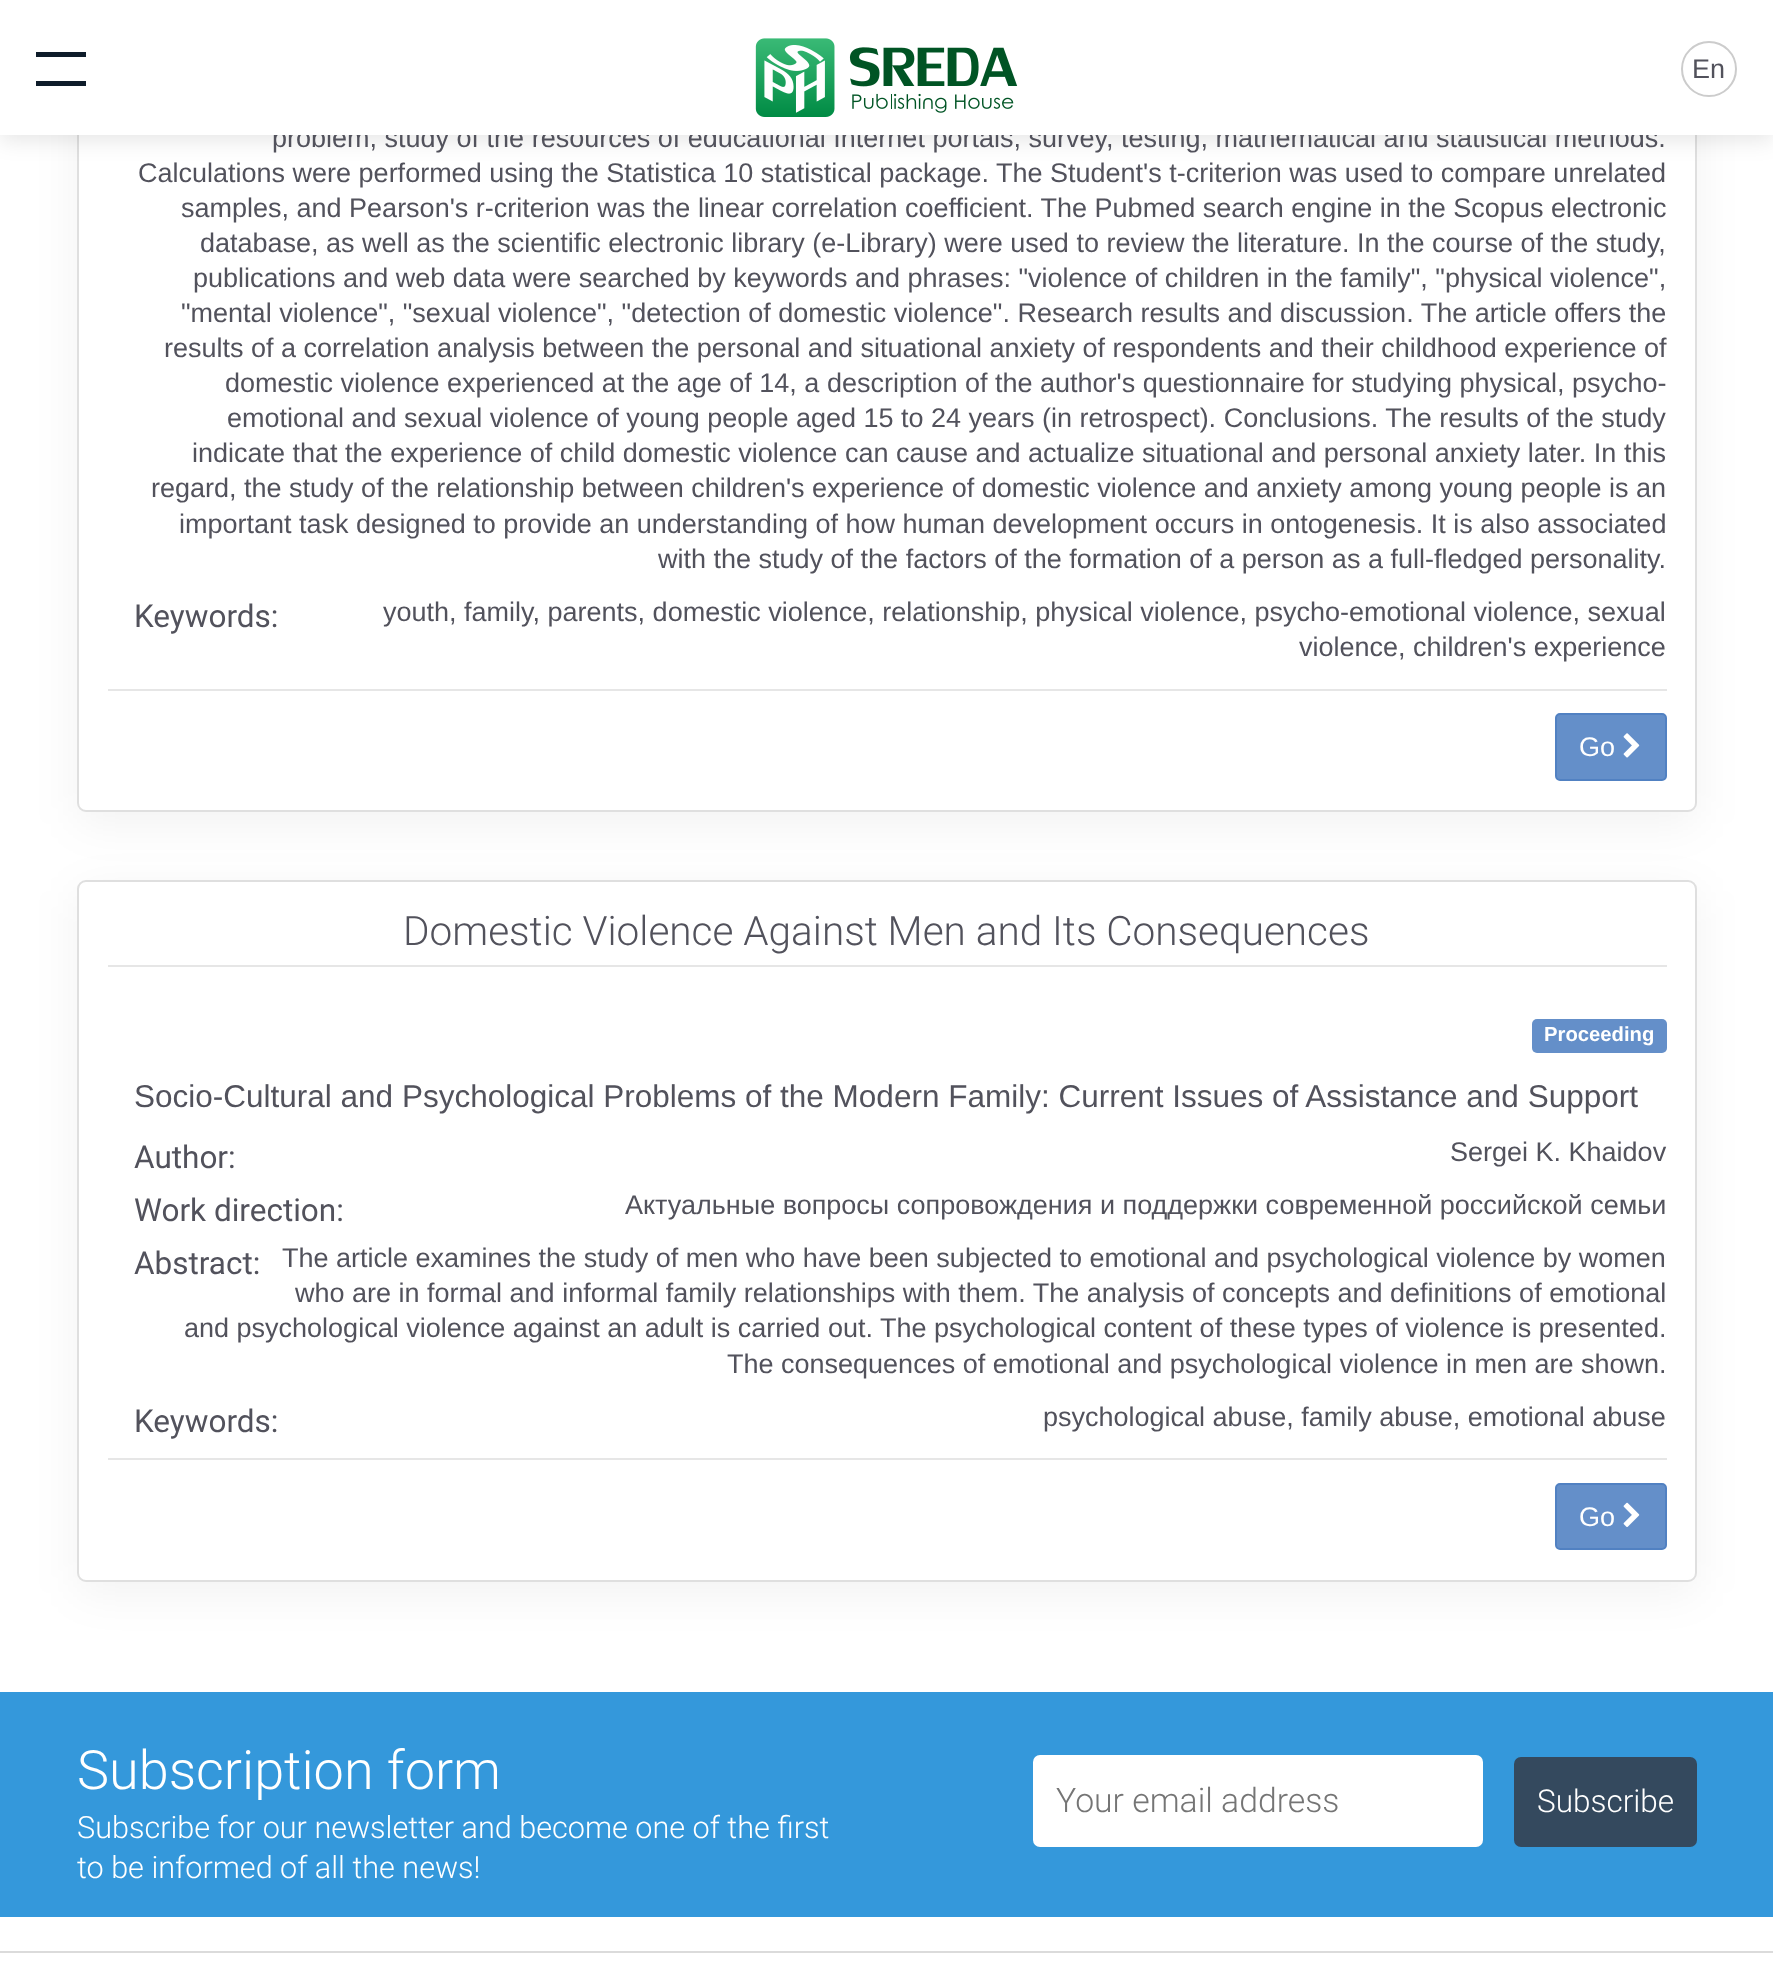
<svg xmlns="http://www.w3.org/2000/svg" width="1773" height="1979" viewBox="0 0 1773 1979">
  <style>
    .t1 { font: 27px Liberation Sans; fill: #52525c; }
    .t2 { font: 31.5px Roboto; fill: #52525c; }
    .t3 { font: 27px Liberation Sans; fill: #fff; }
    .t4 { font: 300 40.5px Roboto; fill: #52525c; }
    .t5 { font: bold 20.25px Liberation Sans; fill: #fff; }
    .t6 { font: 31.5px Liberation Sans; fill: #52525c; }
    .t7 { font: 300 54px Roboto; fill: #fff; }
    .t8 { font: 300 30.6px Roboto; fill: #fff; }
    .t9 { font: 300 33.75px Roboto; fill: #757575; }
    .t10 { font: 300 31.5px Roboto; fill: #fff; }
  </style>
  <rect width="100%" height="100%" fill="#fff"/>
  <rect x="77" y="-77" width="1620" height="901" rx="9" fill="#0000000d" filter="blur(22.5px)"/>
  <rect x="78" y="-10" width="1618" height="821" rx="8" fill="#fff" stroke="#dfdfdf" stroke-width="2"/>
  <rect x="0" y="5" width="1773" height="135" fill="#0000001a" filter="blur(11px)"/>
  <text x="272" y="147" class="t1">problem, study of the resources of educational Internet portals, survey, testing, mathematical and statistical methods.</text>
  <rect x="0" y="0" width="1773" height="135" fill="#fff"/>
  <rect x="36" y="52" width="50" height="5" fill="#0e1c2a"/>
  <rect x="36" y="81" width="50" height="5" fill="#0e1c2a"/>
  <image x="755" y="38" width="263" height="79" href="images/1.png"/>
  <circle cx="1709" cy="69" r="27" fill="none" stroke="#ccc" stroke-width="2"/>
  <text x="1692" y="78" class="t1">En</text>
  <text x="138" y="182" class="t1">Calculations were performed using the Statistica 10 statistical package. The Student's t-criterion was used to compare unrelated</text>
  <text x="181" y="217" class="t1">samples, and Pearson's r-criterion was the linear correlation coefficient. The Pubmed search engine in the Scopus electronic</text>
  <text x="200" y="252" class="t1">database, as well as the scientific electronic library (e-Library) were used to review the literature. In the course of the study,</text>
  <text x="193" y="287" class="t1">publications and web data were searched by keywords and phrases: "violence of children in the family", "physical violence",</text>
  <text x="181" y="322" class="t1">"mental violence", "sexual violence", "detection of domestic violence". Research results and discussion. The article offers the</text>
  <text x="164" y="357" class="t1">results of a correlation analysis between the personal and situational anxiety of respondents and their childhood experience of</text>
  <text x="225" y="392" class="t1">domestic violence experienced at the age of 14, a description of the author's questionnaire for studying physical, psycho-</text>
  <text x="227" y="427" class="t1">emotional and sexual violence of young people aged 15 to 24 years (in retrospect). Conclusions. The results of the study</text>
  <text x="192" y="462" class="t1">indicate that the experience of child domestic violence can cause and actualize situational and personal anxiety later. In this</text>
  <text x="151" y="497" class="t1">regard, the study of the relationship between children's experience of domestic violence and anxiety among young people is an</text>
  <text x="179" y="533" class="t1">important task designed to provide an understanding of how human development occurs in ontogenesis. It is also associated</text>
  <text x="658" y="568" class="t1">with the study of the factors of the formation of a person as a full-fledged personality.</text>
  <text x="134" y="627" class="t2">Keywords:</text>
  <text x="383" y="621" class="t1">youth, family, parents, domestic violence, relationship, physical violence, psycho-emotional violence, sexual</text>
  <text x="1299" y="656" class="t1">violence, children's experience</text>
  <rect x="108" y="689" width="1559" height="2" fill="#e6e6e6"/>
  <rect x="1556" y="714" width="110" height="66" rx="4" fill="#648fc9" stroke="#5181c2" stroke-width="2"/>
  <text x="1579" y="756" class="t3">Go</text>
  <image x="1623" y="733" width="17" height="25" href="images/2.png"/>
  <rect x="77" y="891" width="1620" height="702" rx="9" fill="#0000000d" filter="blur(22.5px)"/>
  <rect x="78" y="881" width="1618" height="700" rx="8" fill="#fff" stroke="#dfdfdf" stroke-width="2"/>
  <rect x="108" y="965" width="1559" height="2" fill="#e6e6e6"/>
  <text x="403" y="945" class="t4">Domestic Violence Against Men and Its Consequences</text>
  <rect x="1532" y="1019" width="135" height="34" rx="5" fill="#648fc9"/>
  <text x="1544" y="1041" class="t5">Proceeding</text>
  <text x="134" y="1107" class="t6">Socio-Cultural and Psychological Problems of the Modern Family: Current Issues of Assistance and Support</text>
  <text x="134" y="1168" class="t2">Author:</text>
  <text x="1450" y="1161" class="t1">Sergei K. Khaidov</text>
  <text x="134" y="1221" class="t2">Work direction:</text>
  <text x="625" y="1214" class="t1">Актуальные вопросы сопровождения и поддержки современной российской семьи</text>
  <text x="282" y="1267" class="t1">The article examines the study of men who have been subjected to emotional and psychological violence by women</text>
  <text x="295" y="1302" class="t1">who are in formal and informal family relationships with them. The analysis of concepts and definitions of emotional</text>
  <text x="184" y="1337" class="t1">and psychological violence against an adult is carried out. The psychological content of these types of violence is presented.</text>
  <text x="727" y="1373" class="t1">The consequences of emotional and psychological violence in men are shown.</text>
  <text x="134" y="1274" class="t2">Abstract:</text>
  <text x="134" y="1432" class="t2">Keywords:</text>
  <text x="1043" y="1426" class="t1">psychological abuse, family abuse, emotional abuse</text>
  <rect x="108" y="1458" width="1559" height="2" fill="#e6e6e6"/>
  <rect x="1556" y="1484" width="110" height="65" rx="4" fill="#648fc9" stroke="#5181c2" stroke-width="2"/>
  <text x="1579" y="1526" class="t3">Go</text>
  <image x="1623" y="1502" width="17" height="25" href="images/3.png"/>
  <rect x="0" y="1692" width="1773" height="225" fill="#3498db"/>
  <text x="77" y="1789" class="t7">Subscription form</text>
  <text x="77" y="1838" class="t8">Subscribe for our newsletter and become one of the first</text>
  <text x="77" y="1878" class="t8">to be informed of all the news!</text>
  <rect x="1033" y="1755" width="450" height="92" rx="7" fill="#fff"/>
  <text x="1056" y="1812" class="t9">Your email address</text>
  <rect x="1514" y="1757" width="183" height="90" rx="7" fill="#34495e"/>
  <text x="1537" y="1812" class="t10">Subscribe</text>
  <rect x="0" y="1951" width="1773" height="2" fill="#dbdbdb"/>
</svg>
